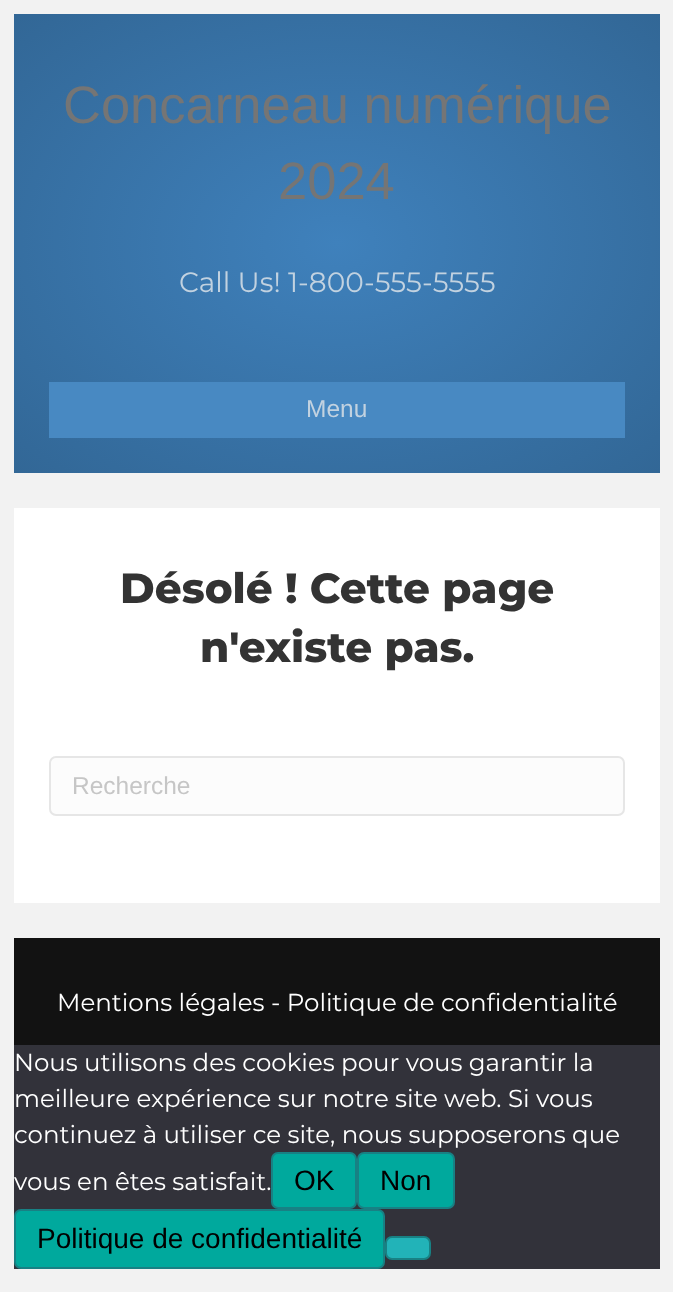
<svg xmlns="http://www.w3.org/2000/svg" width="673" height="1292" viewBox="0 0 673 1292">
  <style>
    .t1 { font: 52.5px Liberation Sans; fill: #757575; }
    .t2 { font: 28px Montserrat; fill: #c2d2e0; }
    .t3 { font: 24.5px Liberation Sans; fill: #c2d2e0; }
    .t4 { font: 800 42px Montserrat; fill: #333; }
    .t5 { font: 24.5px Liberation Sans; fill: #c6c6c6; }
    .t6 { font: 24.5px Montserrat; fill: #fff; }
    .t7 { font: 28px Liberation Sans; fill: #000; }
  </style>
  <defs>
    <radialGradient id="g1" gradientUnits="userSpaceOnUse" cx="0" cy="0" r="1" gradientTransform="matrix(457 0 0 324 337 243)"><stop offset="0" stop-color="#3f81bc"/><stop offset="1" stop-color="#326796"/></radialGradient>
  </defs>
  <rect width="100%" height="100%" fill="#f2f2f2"/>
  <rect x="14" y="14" width="646" height="459" fill="url(#g1)"/>
  <text x="63" y="123" class="t1">Concarneau numérique</text>
  <text x="278" y="199" class="t1">2024</text>
  <text x="179" y="292" class="t2">Call Us! 1-800-555-5555</text>
  <rect x="49" y="382" width="576" height="56" fill="#4889c2"/>
  <text x="306" y="417" class="t3">Menu</text>
  <rect x="14" y="508" width="646" height="395" fill="#fff"/>
  <text x="120" y="603" class="t4">Désolé ! Cette page</text>
  <text x="200" y="662" class="t4">n'existe pas.</text>
  <rect x="50" y="757" width="574" height="58" rx="6" fill="#fcfcfc" stroke="#e6e6e6" stroke-width="2"/>
  <text x="72" y="794" class="t5">Recherche</text>
  <rect x="14" y="938" width="646" height="107" fill="#121212"/>
  <text x="57" y="1011" class="t6">Mentions légales - Politique de confidentialité</text>
  <rect x="14" y="1045" width="646" height="224" fill="#32323a"/>
  <text x="14" y="1071" class="t6">Nous utilisons des cookies pour vous garantir la</text>
  <text x="14" y="1107" class="t6">meilleure expérience sur notre site web. Si vous</text>
  <text x="14" y="1143" class="t6">continuez à utiliser ce site, nous supposerons que</text>
  <rect x="272" y="1153" width="84" height="55" rx="6" fill="#00a99d" stroke="#188184" stroke-width="2"/>
  <text x="294" y="1190" class="t7">OK</text>
  <rect x="358" y="1153" width="96" height="55" rx="6" fill="#00a99d" stroke="#188184" stroke-width="2"/>
  <text x="380" y="1190" class="t7">Non</text>
  <rect x="15" y="1210" width="369" height="58" rx="6" fill="#00a99d" stroke="#188184" stroke-width="2"/>
  <text x="37" y="1248" class="t7">Politique de confidentialité</text>
  <text x="14" y="1190" class="t6">vous en êtes satisfait.</text>
  <rect x="386" y="1237" width="44" height="22" rx="6" fill="#22b3b8" stroke="#188184" stroke-width="2"/>
</svg>
